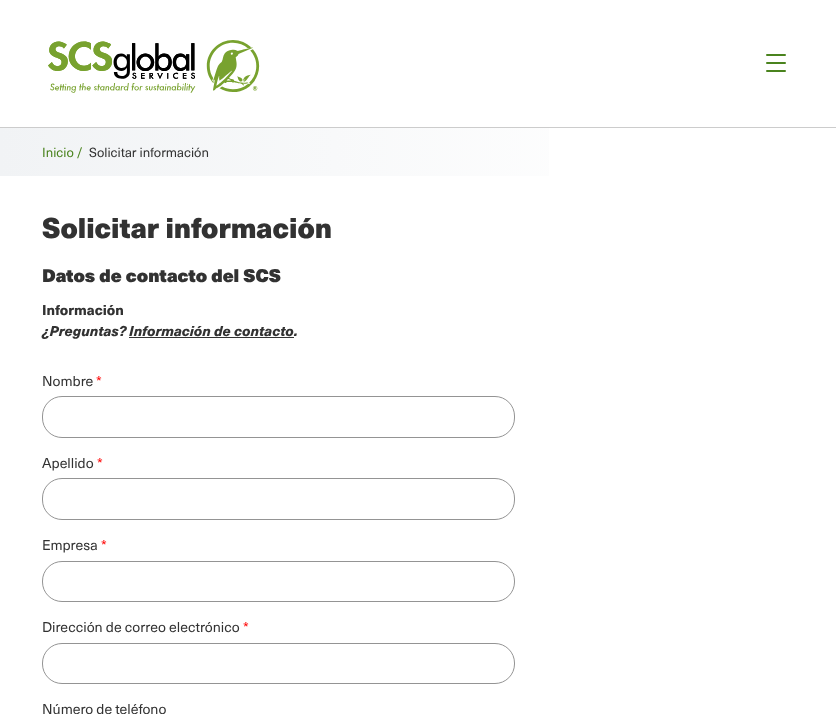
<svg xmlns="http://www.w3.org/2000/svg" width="836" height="714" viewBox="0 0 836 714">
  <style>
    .t1 { font: 13px 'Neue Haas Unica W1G'; fill: #4a831e; }
    .t2 { font: 13px 'Neue Haas Unica W1G'; fill: #323232; }
    .t3 { font: 900 28px 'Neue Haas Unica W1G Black'; fill: #323232; }
    .t4 { font: 900 18px 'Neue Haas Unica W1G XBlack'; fill: #323232; }
    .t5 { font: 900 14px 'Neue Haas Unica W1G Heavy'; fill: #323232; }
    .t6 { font: italic 900 14px 'Neue Haas Unica W1G Heavy'; fill: #323232; }
    .t7 { font: 14px 'Neue Haas Unica W1G'; fill: #323232; }
    .t8 { font: 14px 'Neue Haas Unica W1G'; fill: #f00; }
  </style>
  <defs>
    <linearGradient id="g1" gradientUnits="userSpaceOnUse" x1="0" y1="152" x2="836" y2="152"><stop offset="0" stop-color="#f1f3f5"/><stop offset="0.8" stop-color="#fff"/></linearGradient>
  </defs>
  <rect width="100%" height="100%" fill="#fff"/>
  <rect x="0" y="127" width="836" height="1" fill="#ccc"/>
  <image x="48" y="40" width="212" height="53" href="images/1.png"/>
  <rect x="766" y="54" width="20" height="2" rx="1" fill="#4a831e"/>
  <rect x="766" y="62" width="20" height="2" rx="1" fill="#4a831e"/>
  <rect x="766" y="70" width="20" height="2" rx="1" fill="#4a831e"/>
  <rect x="0" y="128" width="549" height="48" fill="url(#g1)"/>
  <text x="42" y="157" class="t1">Inicio /</text>
  <text x="89" y="157" class="t2">Solicitar información</text>
  <text x="42" y="238" class="t3">Solicitar información</text>
  <text x="42" y="282" class="t4">Datos de contacto del SCS</text>
  <text x="42" y="315" class="t5">Información</text>
  <text x="42" y="336" class="t6">¿Preguntas? Información de contacto.</text>
  <rect x="129" y="337" width="165" height="1" fill="#323232"/>
  <text x="42" y="386" class="t7">Nombre</text>
  <text x="96" y="386" class="t8">*</text>
  <rect x="42.5" y="396.5" width="472" height="41" rx="19.5" fill="none" stroke="#949494"/>
  <text x="42" y="468" class="t7">Apellido</text>
  <text x="97" y="468" class="t8">*</text>
  <rect x="42.5" y="478.5" width="472" height="41" rx="19.5" fill="none" stroke="#949494"/>
  <text x="42" y="550" class="t7">Empresa</text>
  <text x="101" y="550" class="t8">*</text>
  <rect x="42.5" y="561.5" width="472" height="40" rx="19.5" fill="none" stroke="#949494"/>
  <text x="42" y="632" class="t7">Dirección de correo electrónico</text>
  <text x="243" y="632" class="t8">*</text>
  <rect x="42.5" y="643.5" width="472" height="40" rx="19.5" fill="none" stroke="#949494"/>
  <text x="42" y="714" class="t7">Número de teléfono</text>
</svg>
